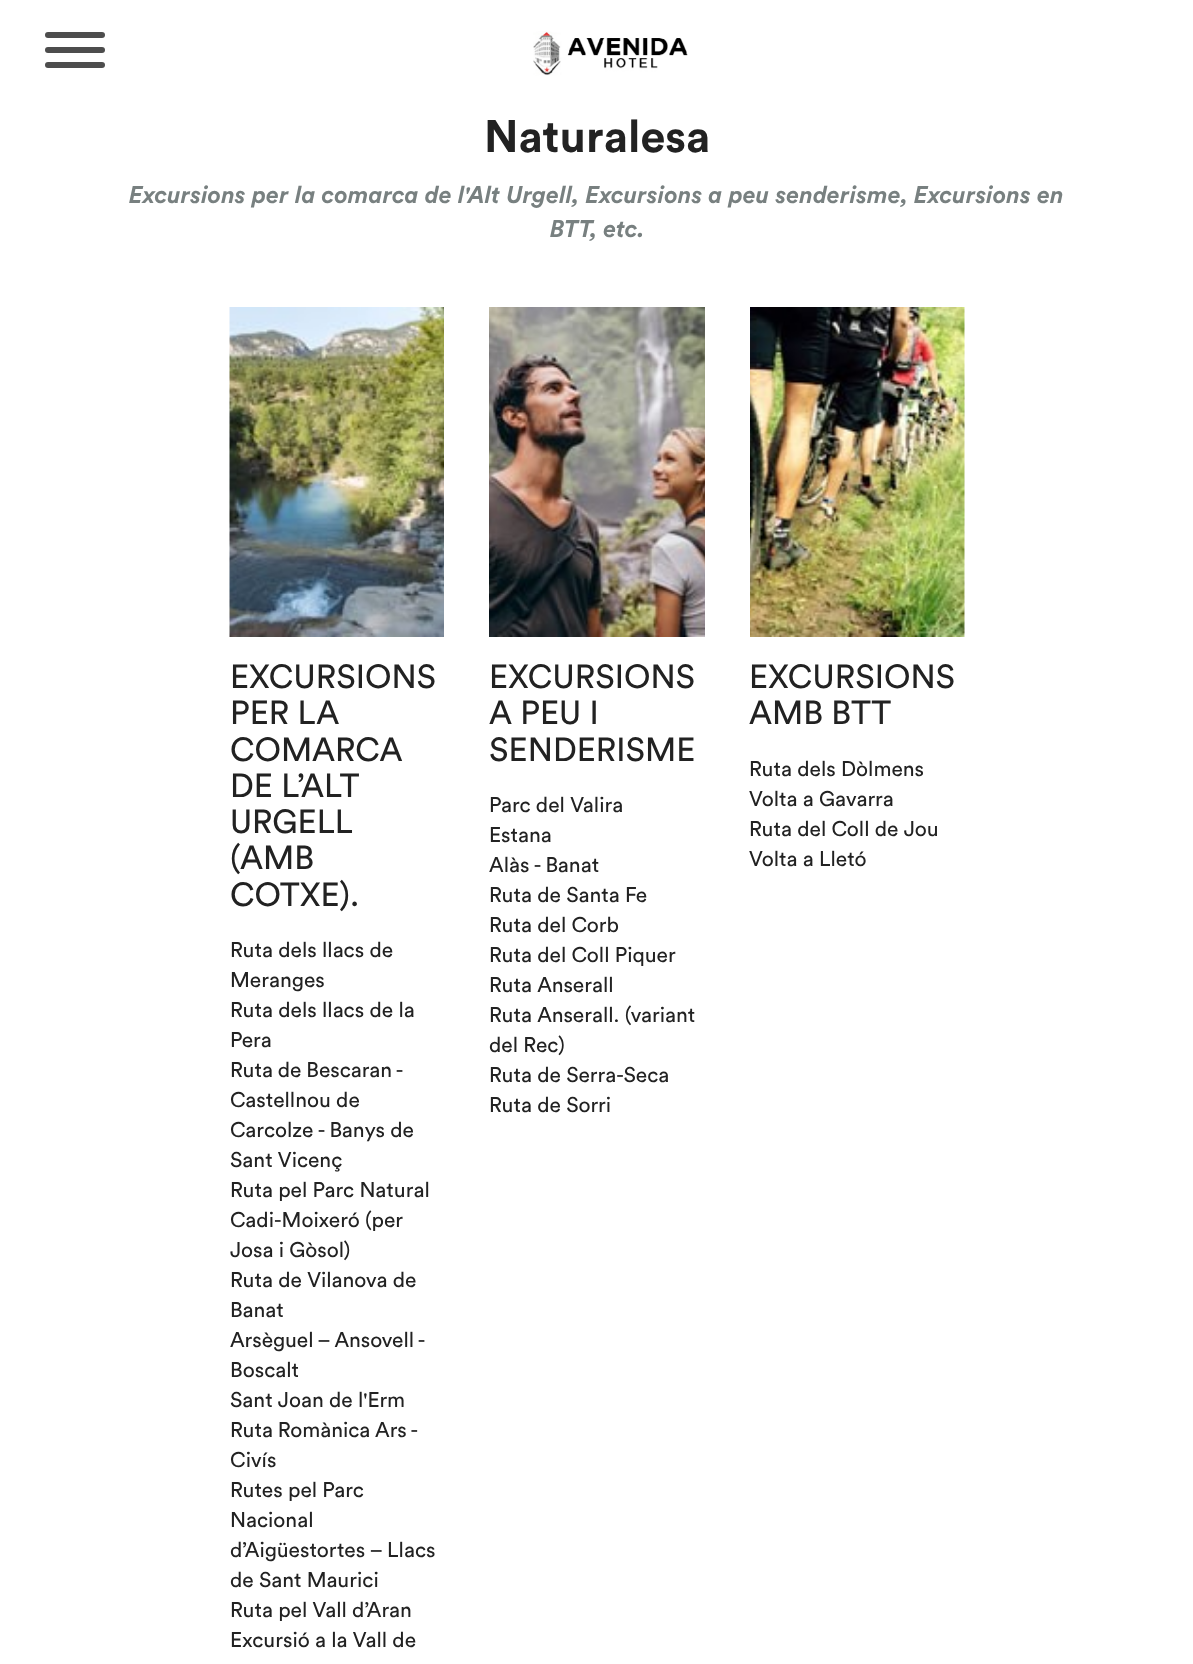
<svg xmlns="http://www.w3.org/2000/svg" width="1193" height="1664" viewBox="0 0 1193 1664">
  <style>
    .t1 { font: bold 45px Circular; fill: #222; }
    .t2 { font: italic bold 24px Circular; fill: #788080; }
    .t3 { font: 33px Circular; fill: #222; }
    .t4 { font: 21px Circular; fill: #222; }
  </style>
  <rect width="100%" height="100%" fill="#fff"/>
  <rect x="45" y="47" width="60" height="6" rx="3" fill="#4d4d4d"/>
  <rect x="45" y="32" width="60" height="6" rx="3" fill="#4d4d4d"/>
  <rect x="45" y="62" width="60" height="6" rx="3" fill="#4d4d4d"/>
  <image x="533" y="31" width="155" height="45" href="images/1.png"/>
  <text x="484" y="152" class="t1">Naturalesa</text>
  <text x="129" y="203" class="t2">Excursions per la comarca de l'Alt Urgell, Excursions a peu senderisme, Excursions en</text>
  <text x="550" y="237" class="t2">BTT, etc.</text>
  <image x="229" y="307" width="215" height="330" href="images/2.png"/>
  <text x="230" y="688" class="t3">EXCURSIONS</text>
  <text x="230" y="724" class="t3">PER LA</text>
  <text x="230" y="761" class="t3">COMARCA</text>
  <text x="230" y="797" class="t3">DE L’ALT</text>
  <text x="230" y="833" class="t3">URGELL</text>
  <text x="230" y="869" class="t3">(AMB</text>
  <text x="230" y="906" class="t3">COTXE).</text>
  <text x="230" y="957" class="t4">Ruta dels llacs de</text>
  <text x="230" y="987" class="t4">Meranges</text>
  <text x="230" y="1017" class="t4">Ruta dels llacs de la</text>
  <text x="230" y="1047" class="t4">Pera</text>
  <text x="230" y="1077" word-spacing="-0.5" class="t4">Ruta de Bescaran -</text>
  <text x="230" y="1107" class="t4">Castellnou de</text>
  <text x="230" y="1137" class="t4">Carcolze - Banys de</text>
  <text x="230" y="1167" class="t4">Sant Vicenç</text>
  <text x="230" y="1197" class="t4">Ruta pel Parc Natural</text>
  <text x="230" y="1227" class="t4">Cadi-Moixeró (per</text>
  <text x="230" y="1257" class="t4">Josa i Gòsol)</text>
  <text x="230" y="1287" class="t4">Ruta de Vilanova de</text>
  <text x="230" y="1317" class="t4">Banat</text>
  <text x="230" y="1347" word-spacing="-0.5" class="t4">Arsèguel – Ansovell -</text>
  <text x="230" y="1377" class="t4">Boscalt</text>
  <text x="230" y="1407" class="t4">Sant Joan de l'Erm</text>
  <text x="230" y="1437" word-spacing="-0.5" class="t4">Ruta Romànica Ars -</text>
  <text x="230" y="1467" class="t4">Civís</text>
  <text x="230" y="1497" class="t4">Rutes pel Parc</text>
  <text x="230" y="1527" class="t4">Nacional</text>
  <text x="230" y="1557" class="t4">d’Aigüestortes – Llacs</text>
  <text x="230" y="1587" class="t4">de Sant Maurici</text>
  <text x="230" y="1617" class="t4">Ruta pel Vall d’Aran</text>
  <text x="230" y="1647" class="t4">Excursió a la Vall de</text>
  <image x="489" y="307" width="216" height="330" href="images/3.png"/>
  <text x="489" y="688" class="t3">EXCURSIONS</text>
  <text x="489" y="724" class="t3">A PEU I</text>
  <text x="489" y="761" class="t3">SENDERISME</text>
  <text x="489" y="812" class="t4">Parc del Valira</text>
  <text x="489" y="842" class="t4">Estana</text>
  <text x="489" y="872" class="t4">Alàs - Banat</text>
  <text x="489" y="902" class="t4">Ruta de Santa Fe</text>
  <text x="489" y="932" class="t4">Ruta del Corb</text>
  <text x="489" y="962" class="t4">Ruta del Coll Piquer</text>
  <text x="489" y="992" class="t4">Ruta Anserall</text>
  <text x="489" y="1022" class="t4">Ruta Anserall. (variant</text>
  <text x="489" y="1052" class="t4">del Rec)</text>
  <text x="489" y="1082" class="t4">Ruta de Serra-Seca</text>
  <text x="489" y="1112" class="t4">Ruta de Sorri</text>
  <image x="750" y="307" width="215" height="330" href="images/4.png"/>
  <text x="749" y="688" class="t3">EXCURSIONS</text>
  <text x="749" y="724" class="t3">AMB BTT</text>
  <text x="749" y="776" class="t4">Ruta dels Dòlmens</text>
  <text x="749" y="806" class="t4">Volta a Gavarra</text>
  <text x="749" y="836" class="t4">Ruta del Coll de Jou</text>
  <text x="749" y="866" class="t4">Volta a Lletó</text>
</svg>
